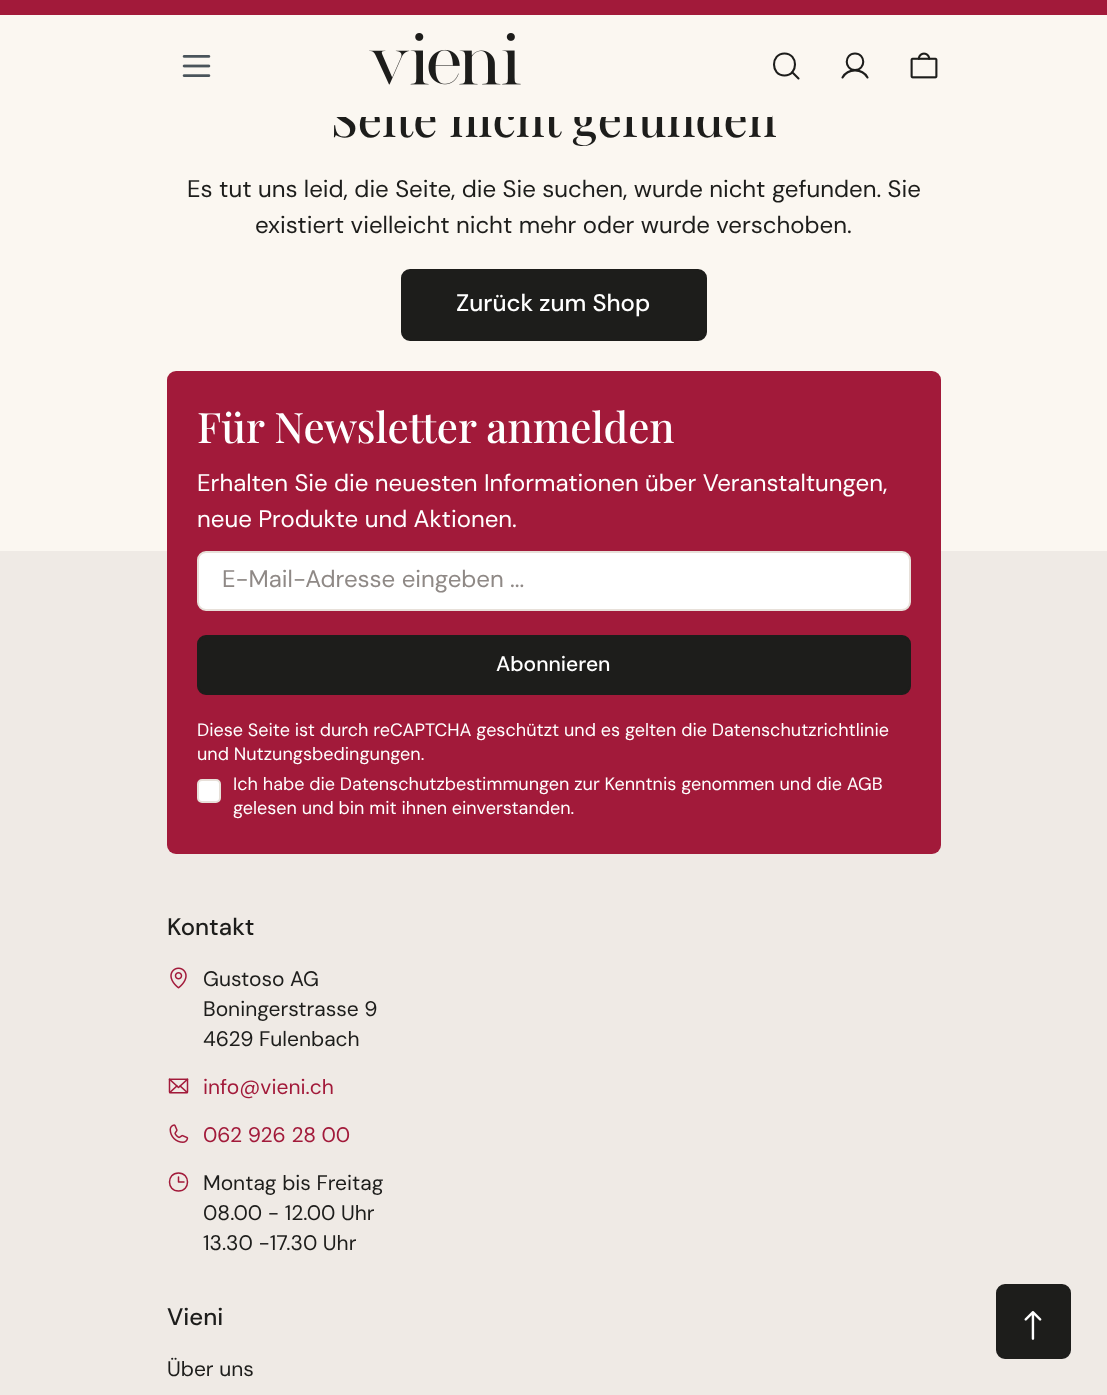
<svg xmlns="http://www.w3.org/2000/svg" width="1107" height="1395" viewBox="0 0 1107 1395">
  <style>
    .t1 { font: 500 48px Playfair Display; fill: #1d1d1b; }
    .t2 { font: 24px DM Sans; fill: #1d1d1b; }
    .t3 { font: 500 24px DM Sans; fill: #fff; }
    .t4 { font: 500 42px Playfair Display; fill: #fff; }
    .t5 { font: 24px DM Sans; fill: #fff; }
    .t6 { font: 24px DM Sans; fill: #8f8986; }
    .t7 { font: 500 21px 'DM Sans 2'; fill: #fff; }
    .t8 { font: 18px 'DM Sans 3'; fill: #fff; }
    .t9 { font: 500 24px DM Sans; fill: #1d1d1b; }
    .t10 { font: 21px 'DM Sans 2'; fill: #1d1d1b; }
    .t11 { font: 21px 'DM Sans 2'; fill: #a21a3a; }
  </style>
  <rect width="100%" height="100%" fill="#fbf7f1"/>
  <text x="331" y="137" class="t1">Seite nicht gefunden</text>
  <rect x="333" y="99" width="439" height="18" fill="#fbf7f1"/>
  <rect x="0" y="0" width="1107" height="15" fill="#a21a3a"/>
  <image x="182" y="55" width="29" height="22" href="images/1.png"/>
  <image x="369" y="33" width="152" height="52" href="images/2.png"/>
  <path d="M784.5 75.5C798.5 75.5 798.5 53.5 784.5 53.5C770.5 53.5 770.5 75.5 784.5 75.5ZM792 72L798.5 78.5" fill="none" stroke="#1d1d1b" stroke-width="2.1" stroke-linecap="round" stroke-linejoin="round"/>
  <path d="M855 70C866 70 866 53.5 855 53.5C844 53.5 844 70 855 70Z" fill="none" stroke="#1d1d1b" stroke-width="2.1"/>
  <path d="M842.5 77.5C848 68 862 68 867.5 77.5" fill="none" stroke="#1d1d1b" stroke-width="2.1" stroke-linecap="round" stroke-linejoin="round"/>
  <image x="910" y="52" width="28" height="27" href="images/3.png"/>
  <text x="187" y="197" class="t2">Es tut uns leid, die Seite, die Sie suchen, wurde nicht gefunden. Sie</text>
  <text x="255" y="233" class="t2">existiert vielleicht nicht mehr oder wurde verschoben.</text>
  <rect x="402" y="270" width="304" height="70" rx="8" fill="#1d1d1b" stroke="#1d1d1b" stroke-width="2"/>
  <text x="456" y="311" class="t3">Zurück zum Shop</text>
  <rect x="0" y="551" width="1107" height="844" fill="#efeae5"/>
  <rect x="167" y="371" width="774" height="483" rx="9" fill="#a21a3a"/>
  <text x="197" y="443" class="t4">Für Newsletter anmelden</text>
  <text x="197" y="491" class="t5">Erhalten Sie die neuesten Informationen über Veranstaltungen,</text>
  <text x="197" y="527" class="t5">neue Produkte und Aktionen.</text>
  <rect x="198" y="552" width="712" height="58" rx="8" fill="#fff" stroke="#e7e0d9" stroke-width="2"/>
  <text x="222" y="587" class="t6">E-Mail-Adresse eingeben ...</text>
  <rect x="198" y="636" width="712" height="58" rx="8" fill="#1d1d1b" stroke="#1d1d1b" stroke-width="2"/>
  <text x="496" y="671" class="t7">Abonnieren</text>
  <text x="197" y="736" class="t8">Diese Seite ist durch reCAPTCHA geschützt und es gelten die Datenschutzrichtlinie</text>
  <text x="197" y="760" class="t8">und Nutzungsbedingungen.</text>
  <rect x="198" y="780" width="22" height="22" rx="4" fill="#fff" stroke="#e7e0d9" stroke-width="2"/>
  <text x="233" y="790" class="t8">Ich habe die Datenschutzbestimmungen zur Kenntnis genommen und die AGB</text>
  <text x="233" y="814" class="t8">gelesen und bin mit ihnen einverstanden.</text>
  <text x="167" y="935" class="t9">Kontakt</text>
  <image x="170" y="967" width="17" height="22" href="images/4.png"/>
  <text x="203" y="986" class="t10">Gustoso AG</text>
  <text x="203" y="1016" class="t10">Boningerstrasse 9</text>
  <text x="203" y="1046" class="t10">4629 Fulenbach</text>
  <image x="168" y="1078" width="21" height="16" href="images/5.png"/>
  <text x="203" y="1094" class="t11">info@vieni.ch</text>
  <image x="169" y="1124" width="20" height="19" href="images/6.png"/>
  <text x="203" y="1142" class="t11">062 926 28 00</text>
  <path d="M178.5 1191C190.5 1191 190.5 1173 178.5 1173C166.5 1173 166.5 1191 178.5 1191Z" fill="none" stroke="#a21a3a" stroke-width="1.5"/>
  <path d="M178.5 1177V1182H184" fill="none" stroke="#a21a3a" stroke-width="1.5" stroke-linecap="round" stroke-linejoin="round"/>
  <text x="203" y="1190" class="t10">Montag bis Freitag</text>
  <text x="203" y="1220" class="t10">08.00 - 12.00 Uhr</text>
  <text x="203" y="1250" class="t10">13.30 -17.30 Uhr</text>
  <text x="167" y="1325" class="t9">Vieni</text>
  <text x="167" y="1376" class="t10">Über uns</text>
  <rect x="997" y="1285" width="73" height="73" rx="8" fill="#1d1d1b" stroke="#1d1d1b" stroke-width="2"/>
  <image x="1024" y="1311" width="18" height="29" href="images/7.png"/>
</svg>
